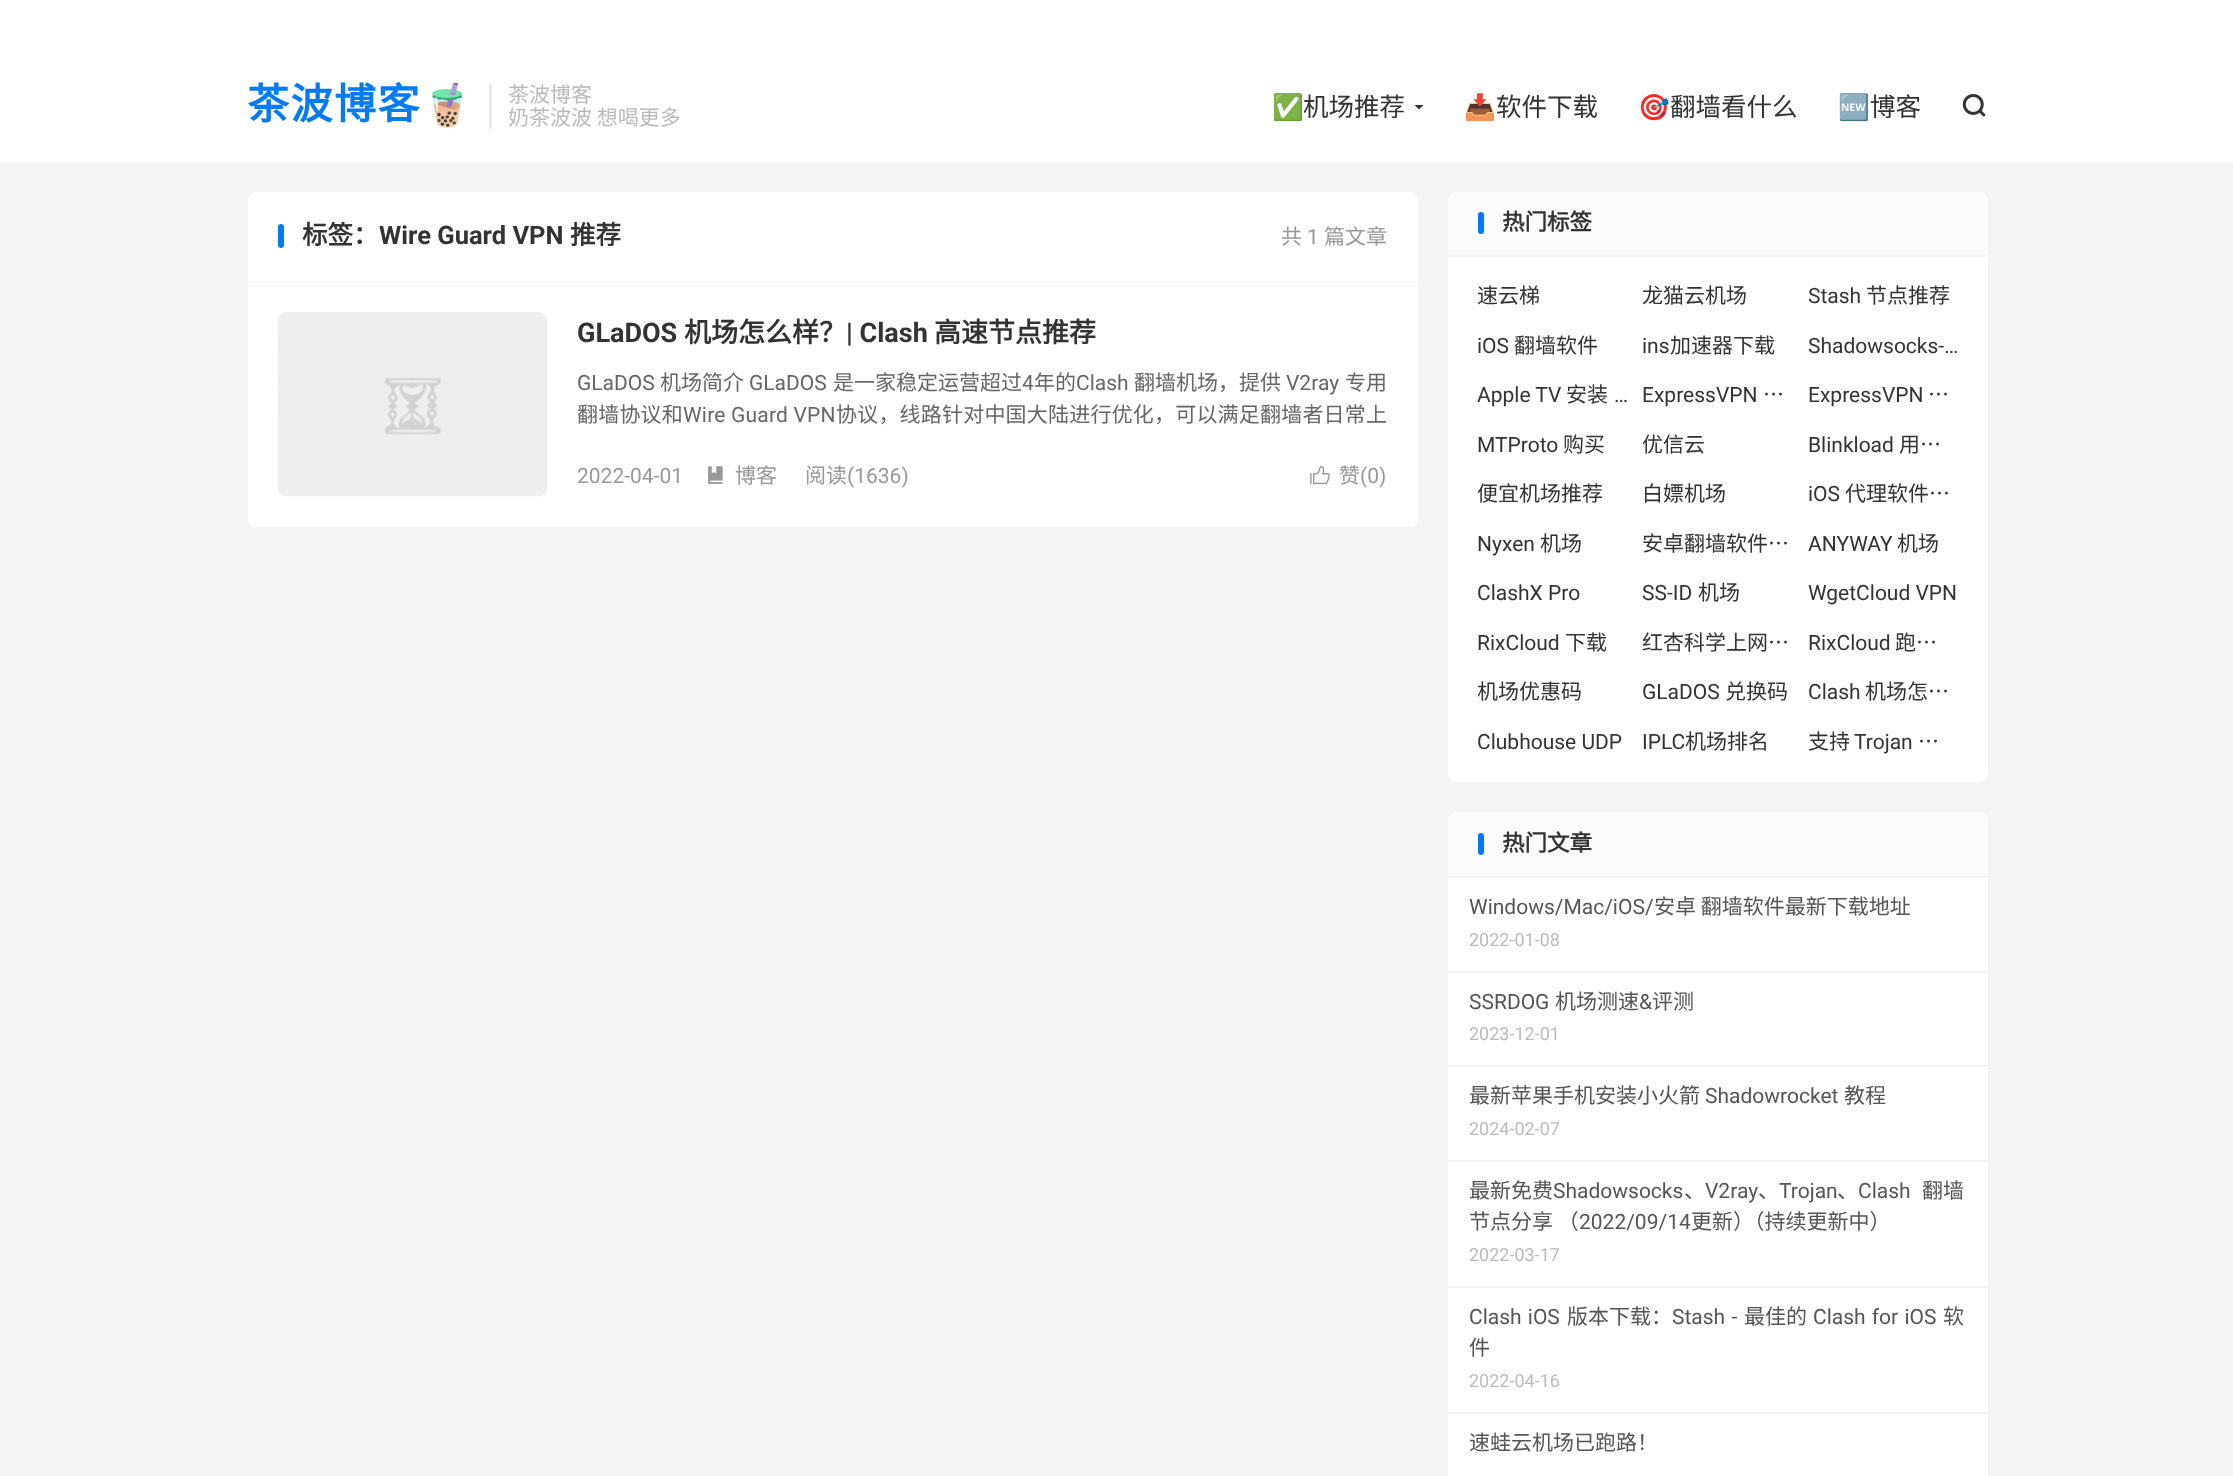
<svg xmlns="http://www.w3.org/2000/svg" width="2233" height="1476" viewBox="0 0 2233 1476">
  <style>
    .t1 { font: bold 42px Noto Sans CJK SC; letter-spacing: 1.5px; fill: #007bff; }
    .t2 { font: bold 42px Noto Color Emoji; letter-spacing: 1.5px; fill: #007bff; }
    .t3 { font: 21px Noto Sans CJK SC; fill: #bbb; }
    .t4 { font: 25.5px Noto Color Emoji; fill: #333; }
    .t5 { font: 25.5px Noto Sans CJK SC; fill: #333; }
    .t6 { font: bold 25.5px Noto Sans CJK SC; fill: #333; }
    .t7 { font: bold 25.5px Roboto; fill: #333; }
    .t8 { font: 21px Noto Sans CJK SC; fill: #999; }
    .t9 { font: 21px Roboto; fill: #999; }
    .t10 { font: bold 27px Roboto; fill: #333; }
    .t11 { font: bold 27px Noto Sans CJK SC; fill: #333; }
    .t12 { font: 21px Roboto; fill: #666; }
    .t13 { font: 21px Noto Sans CJK SC; fill: #666; }
    .t14 { font: 21px Noto Sans CJK SC; letter-spacing: 0.2px; fill: #666; }
    .t15 { font: 21px Roboto; letter-spacing: 0.2px; fill: #666; }
    .t16 { font: bold 22.5px Noto Sans CJK SC; fill: #333; }
    .t17 { font: 21px Noto Sans CJK SC; fill: #333; }
    .t18 { font: 21px Roboto; fill: #333; }
    .t19 { font: 21px Roboto; fill: #555; }
    .t20 { font: 21px Noto Sans CJK SC; fill: #555; }
    .t21 { font: 18px Roboto; fill: #bbb; }
  </style>
  <defs>
    <clipPath id="clip1"><rect x="248" y="83" width="226" height="48"/></clipPath>
    <clipPath id="clip2"><rect x="578" y="368" width="810" height="63"/></clipPath>
    <clipPath id="clip3"><rect x="1478" y="281" width="150" height="31"/></clipPath>
    <clipPath id="clip4"><rect x="1478" y="677" width="150" height="31"/></clipPath>
  </defs>
  <rect width="100%" height="100%" fill="#f4f4f4"/>
  <rect x="0" y="0" width="2233" height="162" fill="#fff"/>
  <text x="247" y="119" class="t1">茶波博客</text>
  <g clip-path="url(#clip1)">
    <text x="421" y="119" class="t2">🧋</text>
  </g>
  <rect x="489" y="84" width="3" height="45" fill="#eaeaea"/>
  <text x="508" y="102" class="t3">茶波博客</text>
  <text x="508" y="125" class="t3">奶茶波波 想喝更多</text>
  <text x="1272" y="116" class="t4">✅</text>
  <text x="1303" y="116" class="t5">机场推荐</text>
  <path d="M1414.5 105H1423.5L1419 109.5Z" fill="#333"/>
  <text x="1464" y="116" class="t4">📥</text>
  <text x="1496" y="116" class="t5">软件下载</text>
  <text x="1638" y="116" class="t4">🎯</text>
  <text x="1670" y="116" class="t5">翻墙看什么</text>
  <text x="1838" y="116" class="t4">🆕</text>
  <text x="1870" y="116" class="t5">博客</text>
  <image x="1962" y="94" width="24" height="23" href="images/1.png"/>
  <path d="M257 192H1409C1414 192 1418 196 1418 201V282H248V201C248 196 252 192 257 192Z" fill="#fff"/>
  <rect x="248" y="281" width="1170" height="1" fill="#f3f3f3"/>
  <rect x="278" y="224" width="6" height="24" rx="3" fill="#007bff"/>
  <text x="302" y="244" class="t6">标签：</text>
  <text x="379" y="244" class="t7">Wire Guard VPN</text>
  <text x="570" y="244" class="t6">推荐</text>
  <text x="1281" y="244" class="t8">共</text>
  <text x="1307" y="244" class="t9">1</text>
  <text x="1324" y="244" class="t8">篇文章</text>
  <path d="M248 282H1418V519C1418 524 1414 528 1409 528H257C252 528 248 524 248 519Z" fill="#fff"/>
  <rect x="252" y="527" width="1161" height="1" fill="#f3f3f3"/>
  <image x="277" y="312" width="271" height="185" href="images/2.png"/>
  <text x="577" y="342" class="t10">GLaDOS</text>
  <text x="684" y="342" class="t11">机场怎么样？</text>
  <text x="846" y="342" class="t10">| Clash</text>
  <text x="934" y="342" class="t11">高速节点推荐</text>
  <text x="577" y="390" class="t12">GLaDOS</text>
  <text x="660" y="390" class="t13">机场简介</text>
  <text x="749" y="390" class="t12">GLaDOS</text>
  <text x="833" y="390" class="t13">是一家稳定运营超过</text>
  <text x="1022" y="390" class="t12">4</text>
  <text x="1034" y="390" class="t13">年的</text>
  <text x="1076" y="390" class="t12">Clash</text>
  <text x="1134" y="390" class="t13">翻墙机场，提供</text>
  <text x="1286" y="390" class="t12">V2ray</text>
  <text x="1345" y="390" class="t13">专用</text>
  <g clip-path="url(#clip2)">
    <text x="577" y="422" class="t14">翻墙协议和</text>
  </g>
  <text x="683" y="422" class="t15">Wire Guard VPN</text>
  <text x="836" y="422" class="t14">协议，线路针对中国大陆进行优化，可以满足翻墙者日常上</text>
  <text x="577" y="483" class="t9">2022-04-01</text>
  <image x="708" y="466" width="15" height="18" href="images/3.png"/>
  <text x="735" y="483" class="t8">博客</text>
  <text x="805" y="483" class="t8">阅读</text>
  <text x="847" y="483" class="t9">(1636)</text>
  <image x="1310" y="466" width="20" height="19" href="images/4.png"/>
  <text x="1339" y="483" class="t8">赞</text>
  <text x="1360" y="483" class="t9">(0)</text>
  <rect x="1448" y="192" width="540" height="590" rx="9" fill="#fff"/>
  <path d="M1457 192H1979C1984 192 1988 196 1988 201V257H1448V201C1448 196 1452 192 1457 192Z" fill="#fbfbfb"/>
  <rect x="1448" y="255" width="540" height="2" fill="#f3f3f3"/>
  <rect x="1478" y="212" width="6" height="22" rx="3" fill="#007bff"/>
  <text x="1502" y="230" class="t16">热门标签</text>
  <g clip-path="url(#clip3)">
    <text x="1477" y="303" class="t17">速云梯</text>
  </g>
  <text x="1642" y="303" class="t17">龙猫云机场</text>
  <text x="1808" y="303" class="t18">Stash</text>
  <text x="1866" y="303" class="t17">节点推荐</text>
  <text x="1477" y="353" class="t18">iOS</text>
  <text x="1514" y="353" class="t17">翻墙软件</text>
  <text x="1642" y="353" class="t18">ins</text>
  <text x="1670" y="353" class="t17">加速器下载</text>
  <text x="1808" y="353" class="t18">Shadowsocks-…</text>
  <text x="1477" y="402" class="t18">Apple TV</text>
  <text x="1566" y="402" class="t17">安装</text>
  <text x="1614" y="402" class="t18">…</text>
  <text x="1642" y="402" class="t18">ExpressVPN</text>
  <text x="1763" y="402" class="t17">…</text>
  <text x="1808" y="402" class="t18">ExpressVPN</text>
  <text x="1928" y="402" class="t17">…</text>
  <text x="1477" y="452" class="t18">MTProto</text>
  <text x="1563" y="452" class="t17">购买</text>
  <text x="1642" y="452" class="t17">优信云</text>
  <text x="1808" y="452" class="t18">Blinkload</text>
  <text x="1899" y="452" class="t17">用…</text>
  <text x="1477" y="501" class="t17">便宜机场推荐</text>
  <text x="1642" y="501" class="t17">白嫖机场</text>
  <text x="1808" y="501" class="t18">iOS</text>
  <text x="1845" y="501" class="t17">代理软件…</text>
  <text x="1477" y="551" class="t18">Nyxen</text>
  <text x="1540" y="551" class="t17">机场</text>
  <text x="1642" y="551" class="t17">安卓翻墙软件…</text>
  <text x="1808" y="551" class="t18">ANYWAY</text>
  <text x="1897" y="551" class="t17">机场</text>
  <text x="1477" y="600" class="t18">ClashX Pro</text>
  <text x="1642" y="600" class="t18">SS-ID</text>
  <text x="1698" y="600" class="t17">机场</text>
  <text x="1808" y="600" class="t18">WgetCloud VPN</text>
  <text x="1477" y="650" class="t18">RixCloud</text>
  <text x="1565" y="650" class="t17">下载</text>
  <text x="1642" y="650" class="t17">红杏科学上网…</text>
  <text x="1808" y="650" class="t18">RixCloud</text>
  <text x="1895" y="650" class="t17">跑…</text>
  <g clip-path="url(#clip4)">
    <text x="1477" y="699" class="t17">机场优惠码</text>
  </g>
  <text x="1642" y="699" class="t18">GLaDOS</text>
  <text x="1725" y="699" class="t17">兑换码</text>
  <text x="1808" y="699" class="t18">Clash</text>
  <text x="1865" y="699" class="t17">机场怎…</text>
  <text x="1477" y="749" class="t18">Clubhouse UDP</text>
  <text x="1642" y="749" class="t18">IPLC</text>
  <text x="1685" y="749" class="t17">机场排名</text>
  <text x="1808" y="749" class="t17">支持</text>
  <text x="1854" y="749" class="t18">Trojan</text>
  <text x="1918" y="749" class="t17">…</text>
  <rect x="1448" y="812" width="540" height="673" rx="9" fill="#fff"/>
  <path d="M1457 812H1979C1984 812 1988 816 1988 821V878H1448V821C1448 816 1452 812 1457 812Z" fill="#fbfbfb"/>
  <rect x="1448" y="876" width="540" height="2" fill="#f3f3f3"/>
  <rect x="1478" y="833" width="6" height="22" rx="3" fill="#007bff"/>
  <text x="1502" y="851" class="t16">热门文章</text>
  <rect x="1448" y="971" width="540" height="2" fill="#f3f3f3"/>
  <text x="1469" y="914" class="t19">Windows/Mac/iOS/</text>
  <text x="1654" y="914" class="t20">安卓 翻墙软件最新下载地址</text>
  <text x="1469" y="946" class="t21">2022-01-08</text>
  <rect x="1448" y="1065" width="540" height="2" fill="#f3f3f3"/>
  <text x="1469" y="1009" class="t19">SSRDOG</text>
  <text x="1555" y="1009" class="t20">机场测速</text>
  <text x="1639" y="1009" class="t19">&amp;</text>
  <text x="1652" y="1009" class="t20">评测</text>
  <text x="1469" y="1040" class="t21">2023-12-01</text>
  <rect x="1448" y="1160" width="540" height="2" fill="#f3f3f3"/>
  <text x="1469" y="1103" class="t20">最新苹果手机安装小火箭</text>
  <text x="1705" y="1103" class="t19">Shadowrocket</text>
  <text x="1844" y="1103" class="t20">教程</text>
  <text x="1469" y="1135" class="t21">2024-02-07</text>
  <rect x="1448" y="1286" width="540" height="2" fill="#f3f3f3"/>
  <text x="1469" y="1198" class="t20">最新免费</text>
  <text x="1553" y="1198" class="t19">Shadowsocks</text>
  <text x="1684" y="1198" class="t20">、</text>
  <text x="1705" y="1198" class="t19">V2ray</text>
  <text x="1758" y="1198" class="t20">、</text>
  <text x="1779" y="1198" class="t19">Trojan</text>
  <text x="1837" y="1198" class="t20">、</text>
  <text x="1858" y="1198" class="t19">Clash</text>
  <text x="1922" y="1198" class="t20">翻墙</text>
  <text x="1469" y="1229" class="t20">节点分享 （</text>
  <text x="1579" y="1229" class="t19">2022/09/14</text>
  <text x="1691" y="1229" class="t20">更新）（持续更新中）</text>
  <text x="1469" y="1261" class="t21">2022-03-17</text>
  <rect x="1448" y="1412" width="540" height="2" fill="#f3f3f3"/>
  <text x="1469" y="1324" word-spacing="1" class="t19">Clash iOS</text>
  <text x="1567" y="1324" class="t20">版本下载：</text>
  <text x="1672" y="1324" word-spacing="1" class="t19">Stash -</text>
  <text x="1744" y="1324" class="t20">最佳的</text>
  <text x="1813" y="1324" word-spacing="1" class="t19">Clash for iOS</text>
  <text x="1943" y="1324" class="t20">软</text>
  <text x="1469" y="1355" class="t20">件</text>
  <text x="1469" y="1387" class="t21">2022-04-16</text>
  <text x="1469" y="1450" class="t20">速蛙云机场已跑路！</text>
</svg>
